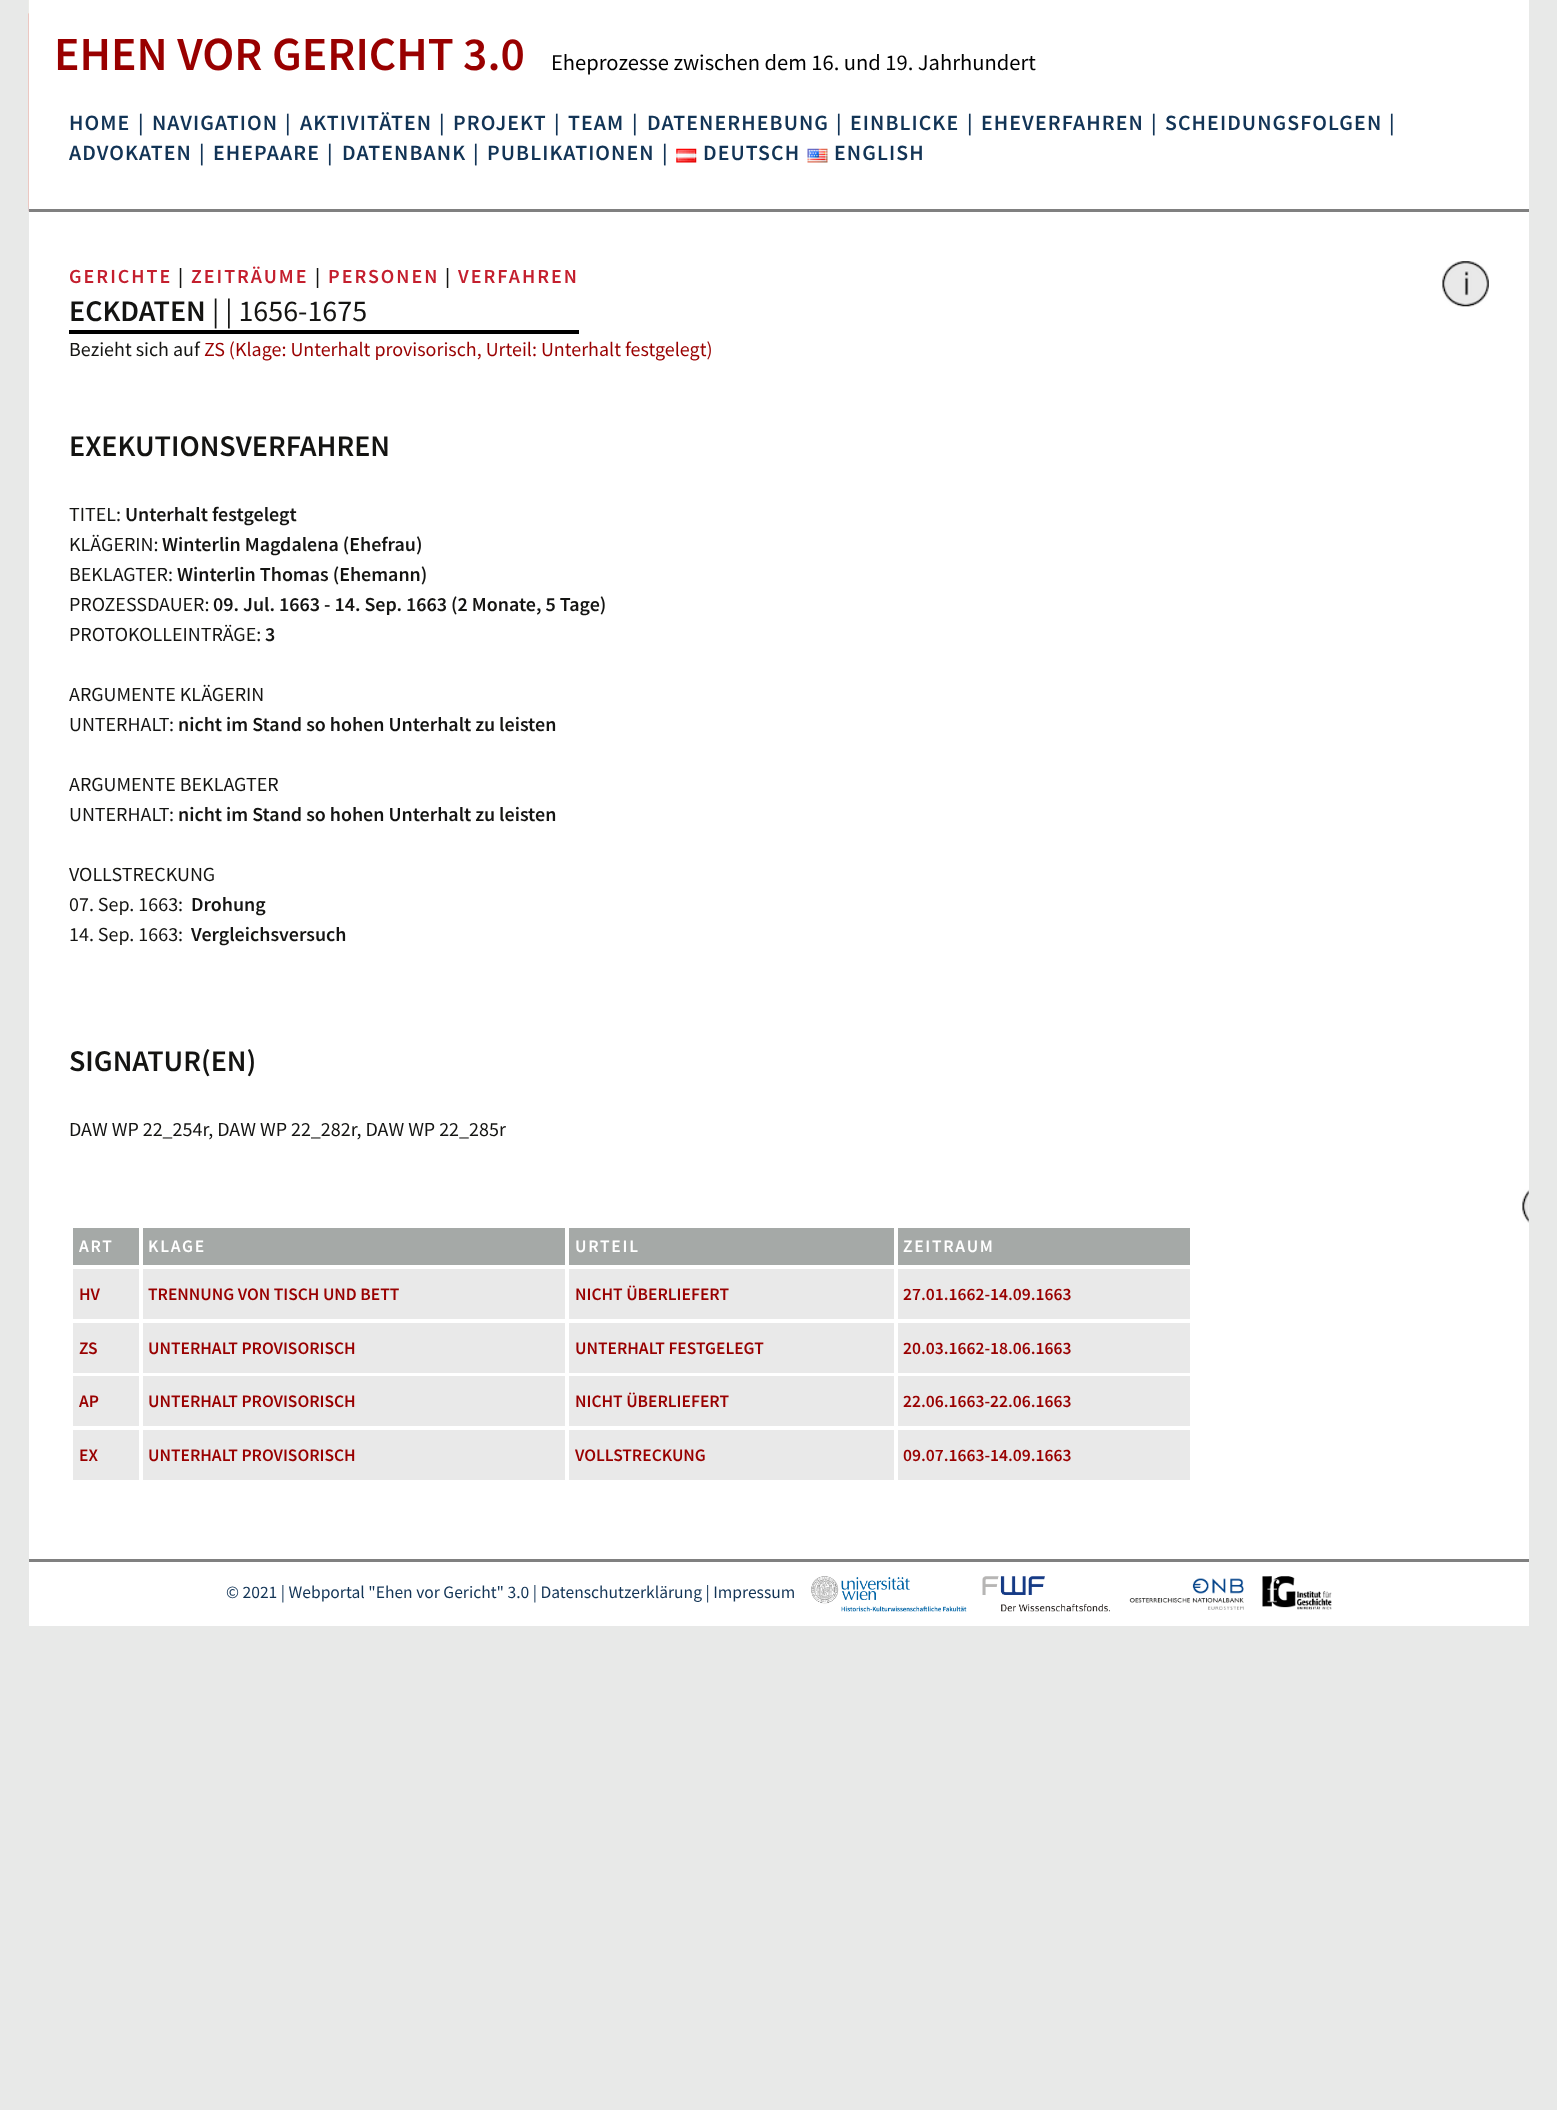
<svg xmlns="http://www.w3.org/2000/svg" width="1557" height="2110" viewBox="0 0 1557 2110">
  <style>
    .t1 { font: 600 47.5px Source Sans Pro; fill: #900; }
    .t2 { font: 22.5px Source Sans Pro; fill: #000; }
    .t3 { font: 600 21.75px Source Sans Pro; letter-spacing: 1.1px; fill: #123456; }
    .t4 { font: 600 20px Source Sans Pro; letter-spacing: 2px; fill: #c41f2e; }
    .t5 { font: 600 20px Source Sans Pro; letter-spacing: 2px; fill: #141412; }
    .t6 { font: 600 30px Source Sans Pro; fill: #141412; }
    .t7 { font: 30px Source Sans Pro; fill: #141412; }
    .t8 { font: 20px Source Sans Pro; fill: #141412; }
    .t9 { font: 20px Source Sans Pro; fill: #900; }
    .t10 { font: 600 20px Source Sans Pro; fill: #141412; }
    .t11 { font: 600 17.5px Source Sans Pro; letter-spacing: 1.75px; fill: #fff; }
    .t12 { font: 600 17.5px Source Sans Pro; fill: #900; }
    .t13 { font: 17.5px Source Sans Pro; fill: #123456; }
  </style>
  <rect width="100%" height="100%" fill="#e8e9e8"/>
  <rect x="29" y="212" width="1500" height="1414" fill="#fff"/>
  <image x="28" y="0" width="1" height="212" href="images/1.png"/>
  <rect x="29" y="0" width="1500" height="209" fill="#fff"/>
  <text x="54" y="70" class="t1">EHEN VOR GERICHT 3.0</text>
  <text x="551" y="70" class="t2">Eheprozesse zwischen dem 16. und 19. Jahrhundert</text>
  <rect x="29" y="209" width="1500" height="3" fill="#808080"/>
  <text x="69" y="130" class="t3">HOME</text>
  <text x="138" y="130" class="t3">|</text>
  <text x="152" y="130" class="t3">NAVIGATION</text>
  <text x="285" y="130" class="t3">|</text>
  <text x="300" y="130" class="t3">AKTIVITÄTEN</text>
  <text x="439" y="130" class="t3">|</text>
  <text x="453" y="130" class="t3">PROJEKT</text>
  <text x="554" y="130" class="t3">|</text>
  <text x="568" y="130" class="t3">TEAM</text>
  <text x="632" y="130" class="t3">|</text>
  <text x="647" y="130" class="t3">DATENERHEBUNG</text>
  <text x="836" y="130" class="t3">|</text>
  <text x="850" y="130" class="t3">EINBLICKE</text>
  <text x="967" y="130" class="t3">|</text>
  <text x="981" y="130" class="t3">EHEVERFAHREN</text>
  <text x="1151" y="130" class="t3">|</text>
  <text x="1165" y="130" class="t3">SCHEIDUNGSFOLGEN</text>
  <text x="1389" y="130" class="t3">|</text>
  <text x="69" y="160" class="t3">ADVOKATEN</text>
  <text x="199" y="160" class="t3">|</text>
  <text x="213" y="160" class="t3">EHEPAARE</text>
  <text x="327" y="160" class="t3">|</text>
  <text x="342" y="160" class="t3">DATENBANK</text>
  <text x="473" y="160" class="t3">|</text>
  <text x="487" y="160" class="t3">PUBLIKATIONEN</text>
  <text x="662" y="160" class="t3">|</text>
  <image x="676" y="148" width="21" height="15" href="images/2.png"/>
  <text x="703" y="160" class="t3">DEUTSCH</text>
  <image x="807" y="148" width="21" height="15" href="images/3.png"/>
  <text x="834" y="160" class="t3">ENGLISH</text>
  <text x="69" y="283" class="t4">GERICHTE</text>
  <text x="178" y="283" class="t5">|</text>
  <text x="191" y="283" class="t4">ZEITRÄUME</text>
  <text x="315" y="283" class="t5">|</text>
  <text x="328" y="283" class="t4">PERSONEN</text>
  <text x="445" y="283" class="t5">|</text>
  <text x="458" y="283" class="t4">VERFAHREN</text>
  <rect x="69" y="330" width="510" height="4" fill="#000"/>
  <text x="69" y="321" class="t6">ECKDATEN</text>
  <text x="212" y="321" class="t7">| | 1656-1675</text>
  <image x="1442" y="261" width="47" height="46" href="images/4.png"/>
  <text x="69" y="356" class="t8">Bezieht sich auf</text>
  <text x="204" y="356" class="t9">ZS (Klage: Unterhalt provisorisch, Urteil: Unterhalt festgelegt)</text>
  <text x="69" y="456" class="t6">EXEKUTIONSVERFAHREN</text>
  <text x="69" y="521" class="t8">TITEL:</text>
  <text x="125" y="521" class="t10">Unterhalt festgelegt</text>
  <text x="69" y="551" class="t8">KLÄGERIN:</text>
  <text x="162" y="551" class="t10">Winterlin Magdalena (Ehefrau)</text>
  <text x="69" y="581" class="t8">BEKLAGTER:</text>
  <text x="177" y="581" class="t10">Winterlin Thomas (Ehemann)</text>
  <text x="69" y="611" class="t8">PROZESSDAUER:</text>
  <text x="213" y="611" class="t10">09. Jul. 1663 - 14. Sep. 1663 (2 Monate, 5 Tage)</text>
  <text x="69" y="641" class="t8">PROTOKOLLEINTRÄGE:</text>
  <text x="265" y="641" class="t10">3</text>
  <text x="69" y="701" class="t8">ARGUMENTE KLÄGERIN</text>
  <text x="69" y="731" class="t8">UNTERHALT:</text>
  <text x="178" y="731" class="t10">nicht im Stand so hohen Unterhalt zu leisten</text>
  <text x="69" y="791" class="t8">ARGUMENTE BEKLAGTER</text>
  <text x="69" y="821" class="t8">UNTERHALT:</text>
  <text x="178" y="821" class="t10">nicht im Stand so hohen Unterhalt zu leisten</text>
  <text x="69" y="881" class="t8">VOLLSTRECKUNG</text>
  <text x="69" y="911" class="t8">07. Sep. 1663:</text>
  <text x="191" y="911" class="t10">Drohung</text>
  <text x="69" y="941" class="t8">14. Sep. 1663:</text>
  <text x="191" y="941" class="t10">Vergleichsversuch</text>
  <text x="69" y="1071" class="t6">SIGNATUR(EN)</text>
  <text x="69" y="1136" class="t8">DAW WP 22_254r, DAW WP 22_282r, DAW WP 22_285r</text>
  <image x="1522" y="1189" width="7" height="34" href="images/5.png"/>
  <rect x="73" y="1228" width="66" height="37" fill="#a5a9a7"/>
  <text x="79" y="1252" class="t11">ART</text>
  <rect x="143" y="1228" width="422" height="37" fill="#a5a9a7"/>
  <text x="148" y="1252" class="t11">KLAGE</text>
  <rect x="569" y="1228" width="325" height="37" fill="#a5a9a7"/>
  <text x="575" y="1252" class="t11">URTEIL</text>
  <rect x="898" y="1228" width="292" height="37" fill="#a5a9a7"/>
  <text x="903" y="1252" class="t11">ZEITRAUM</text>
  <rect x="73" y="1269" width="66" height="50" fill="#e9e9e9"/>
  <text x="79" y="1300" class="t12">HV</text>
  <rect x="143" y="1269" width="422" height="50" fill="#e9e9e9"/>
  <text x="148" y="1300" class="t12">TRENNUNG VON TISCH UND BETT</text>
  <rect x="569" y="1269" width="325" height="50" fill="#e9e9e9"/>
  <text x="575" y="1300" class="t12">NICHT ÜBERLIEFERT</text>
  <rect x="898" y="1269" width="292" height="50" fill="#e9e9e9"/>
  <text x="903" y="1300" class="t12">27.01.1662-14.09.1663</text>
  <rect x="73" y="1323" width="66" height="50" fill="#e9e9e9"/>
  <text x="79" y="1354" class="t12">ZS</text>
  <rect x="143" y="1323" width="422" height="50" fill="#e9e9e9"/>
  <text x="148" y="1354" class="t12">UNTERHALT PROVISORISCH</text>
  <rect x="569" y="1323" width="325" height="50" fill="#e9e9e9"/>
  <text x="575" y="1354" class="t12">UNTERHALT FESTGELEGT</text>
  <rect x="898" y="1323" width="292" height="50" fill="#e9e9e9"/>
  <text x="903" y="1354" class="t12">20.03.1662-18.06.1663</text>
  <rect x="73" y="1376" width="66" height="50" fill="#e9e9e9"/>
  <text x="79" y="1407" class="t12">AP</text>
  <rect x="143" y="1376" width="422" height="50" fill="#e9e9e9"/>
  <text x="148" y="1407" class="t12">UNTERHALT PROVISORISCH</text>
  <rect x="569" y="1376" width="325" height="50" fill="#e9e9e9"/>
  <text x="575" y="1407" class="t12">NICHT ÜBERLIEFERT</text>
  <rect x="898" y="1376" width="292" height="50" fill="#e9e9e9"/>
  <text x="903" y="1407" class="t12">22.06.1663-22.06.1663</text>
  <rect x="73" y="1430" width="66" height="50" fill="#e9e9e9"/>
  <text x="79" y="1461" class="t12">EX</text>
  <rect x="143" y="1430" width="422" height="50" fill="#e9e9e9"/>
  <text x="148" y="1461" class="t12">UNTERHALT PROVISORISCH</text>
  <rect x="569" y="1430" width="325" height="50" fill="#e9e9e9"/>
  <text x="575" y="1461" class="t12">VOLLSTRECKUNG</text>
  <rect x="898" y="1430" width="292" height="50" fill="#e9e9e9"/>
  <text x="903" y="1461" class="t12">09.07.1663-14.09.1663</text>
  <rect x="29" y="1559" width="1500" height="3" fill="#808080"/>
  <text x="226" y="1598" class="t13">© 2021 | Webportal "Ehen vor Gericht" 3.0 | Datenschutzerklärung | Impressum</text>
  <image x="811" y="1576" width="156" height="36" href="images/6.png"/>
  <image x="982" y="1576" width="128" height="36" href="images/7.png"/>
  <image x="1129" y="1578" width="115" height="32" href="images/8.png"/>
  <image x="1262" y="1576" width="70" height="34" href="images/9.png"/>
</svg>
